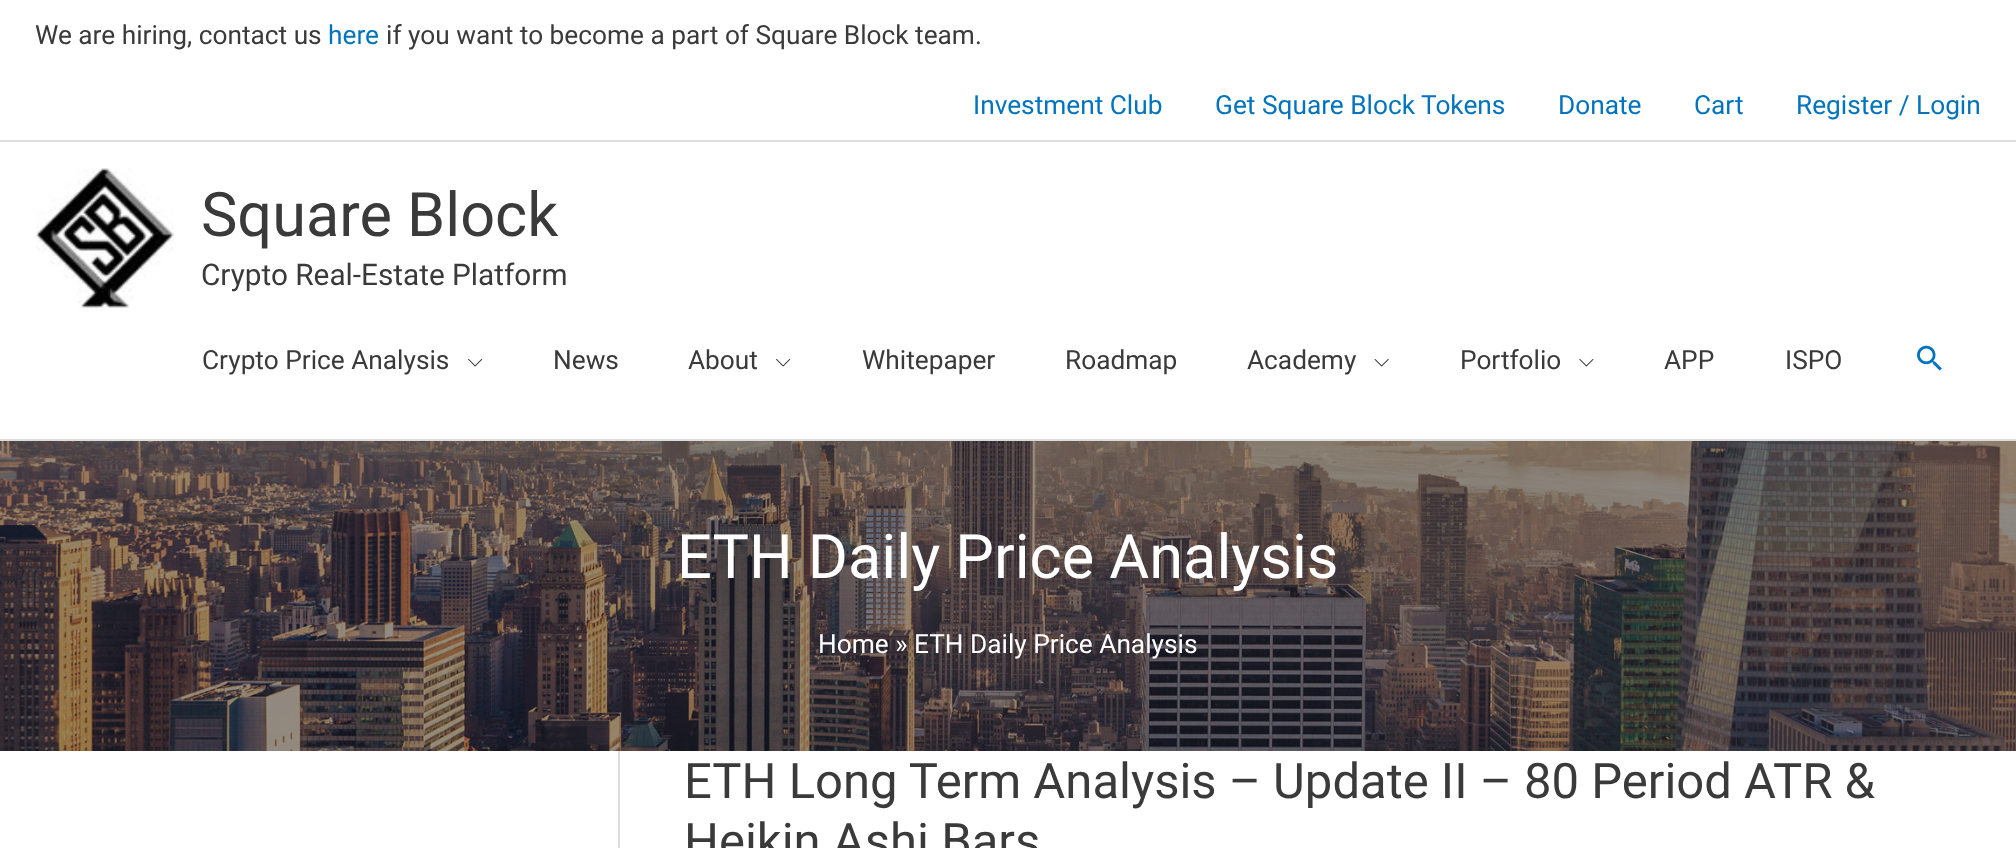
<svg xmlns="http://www.w3.org/2000/svg" width="2016" height="848" viewBox="0 0 2016 848">
  <style>
    .t1 { font: 26.25px Roboto; fill: #3a3a3a; }
    .t2 { font: 26.25px Roboto; fill: #0274be; }
    .t3 { font: 61.25px Roboto; fill: #3a3a3a; }
    .t4 { font: 29.75px Roboto; fill: #3a3a3a; }
    .t5 { font: 61.25px Roboto; fill: #fff; }
    .t6 { font: 26.25px Roboto; fill: #fff; }
    .t7 { font: 49px Roboto; fill: #3a3a3a; }
  </style>
  <rect width="100%" height="100%" fill="#fff"/>
  <rect x="0" y="140" width="2016" height="2" fill="#ddd"/>
  <text x="35" y="44" class="t1">We are hiring, contact us</text>
  <text x="328" y="44" class="t2">here</text>
  <text x="386" y="44" class="t1">if you want to become a part of Square Block team.</text>
  <text x="973" y="114" class="t2">Investment Club</text>
  <text x="1215" y="114" class="t2">Get Square Block Tokens</text>
  <text x="1558" y="114" class="t2">Donate</text>
  <text x="1694" y="114" class="t2">Cart</text>
  <text x="1796" y="114" class="t2">Register / Login</text>
  <rect x="0" y="439" width="2016" height="2" fill="#ddd"/>
  <image x="36" y="168" width="139" height="140" href="images/1.png"/>
  <text x="201" y="236" class="t3">Square Block</text>
  <text x="201" y="285" class="t4">Crypto Real-Estate Platform</text>
  <text x="202" y="369" class="t1">Crypto Price Analysis</text>
  <image x="468" y="358" width="15" height="9" href="images/2.png"/>
  <text x="553" y="369" class="t1">News</text>
  <text x="688" y="369" class="t1">About</text>
  <image x="776" y="358" width="15" height="9" href="images/2.png"/>
  <text x="862" y="369" class="t1">Whitepaper</text>
  <text x="1065" y="369" class="t1">Roadmap</text>
  <text x="1247" y="369" class="t1">Academy</text>
  <image x="1374" y="358" width="15" height="9" href="images/3.png"/>
  <text x="1460" y="369" class="t1">Portfolio</text>
  <image x="1579" y="358" width="15" height="9" href="images/4.png"/>
  <text x="1664" y="369" class="t1">APP</text>
  <text x="1785" y="369" class="t1">ISPO</text>
  <image x="1917" y="345" width="25" height="26" href="images/5.png"/>
  <image x="0" y="441" width="2016" height="310" href="images/6.png"/>
  <text x="677" y="578" class="t5">ETH Daily Price Analysis</text>
  <text x="818" y="653" class="t6">Home » ETH Daily Price Analysis</text>
  <rect x="618" y="751" width="2" height="97" fill="#ddd"/>
  <text x="684" y="798" class="t7">ETH Long Term Analysis – Update II – 80 Period ATR &amp;</text>
  <text x="684" y="858" class="t7">Heikin Ashi Bars</text>
</svg>
